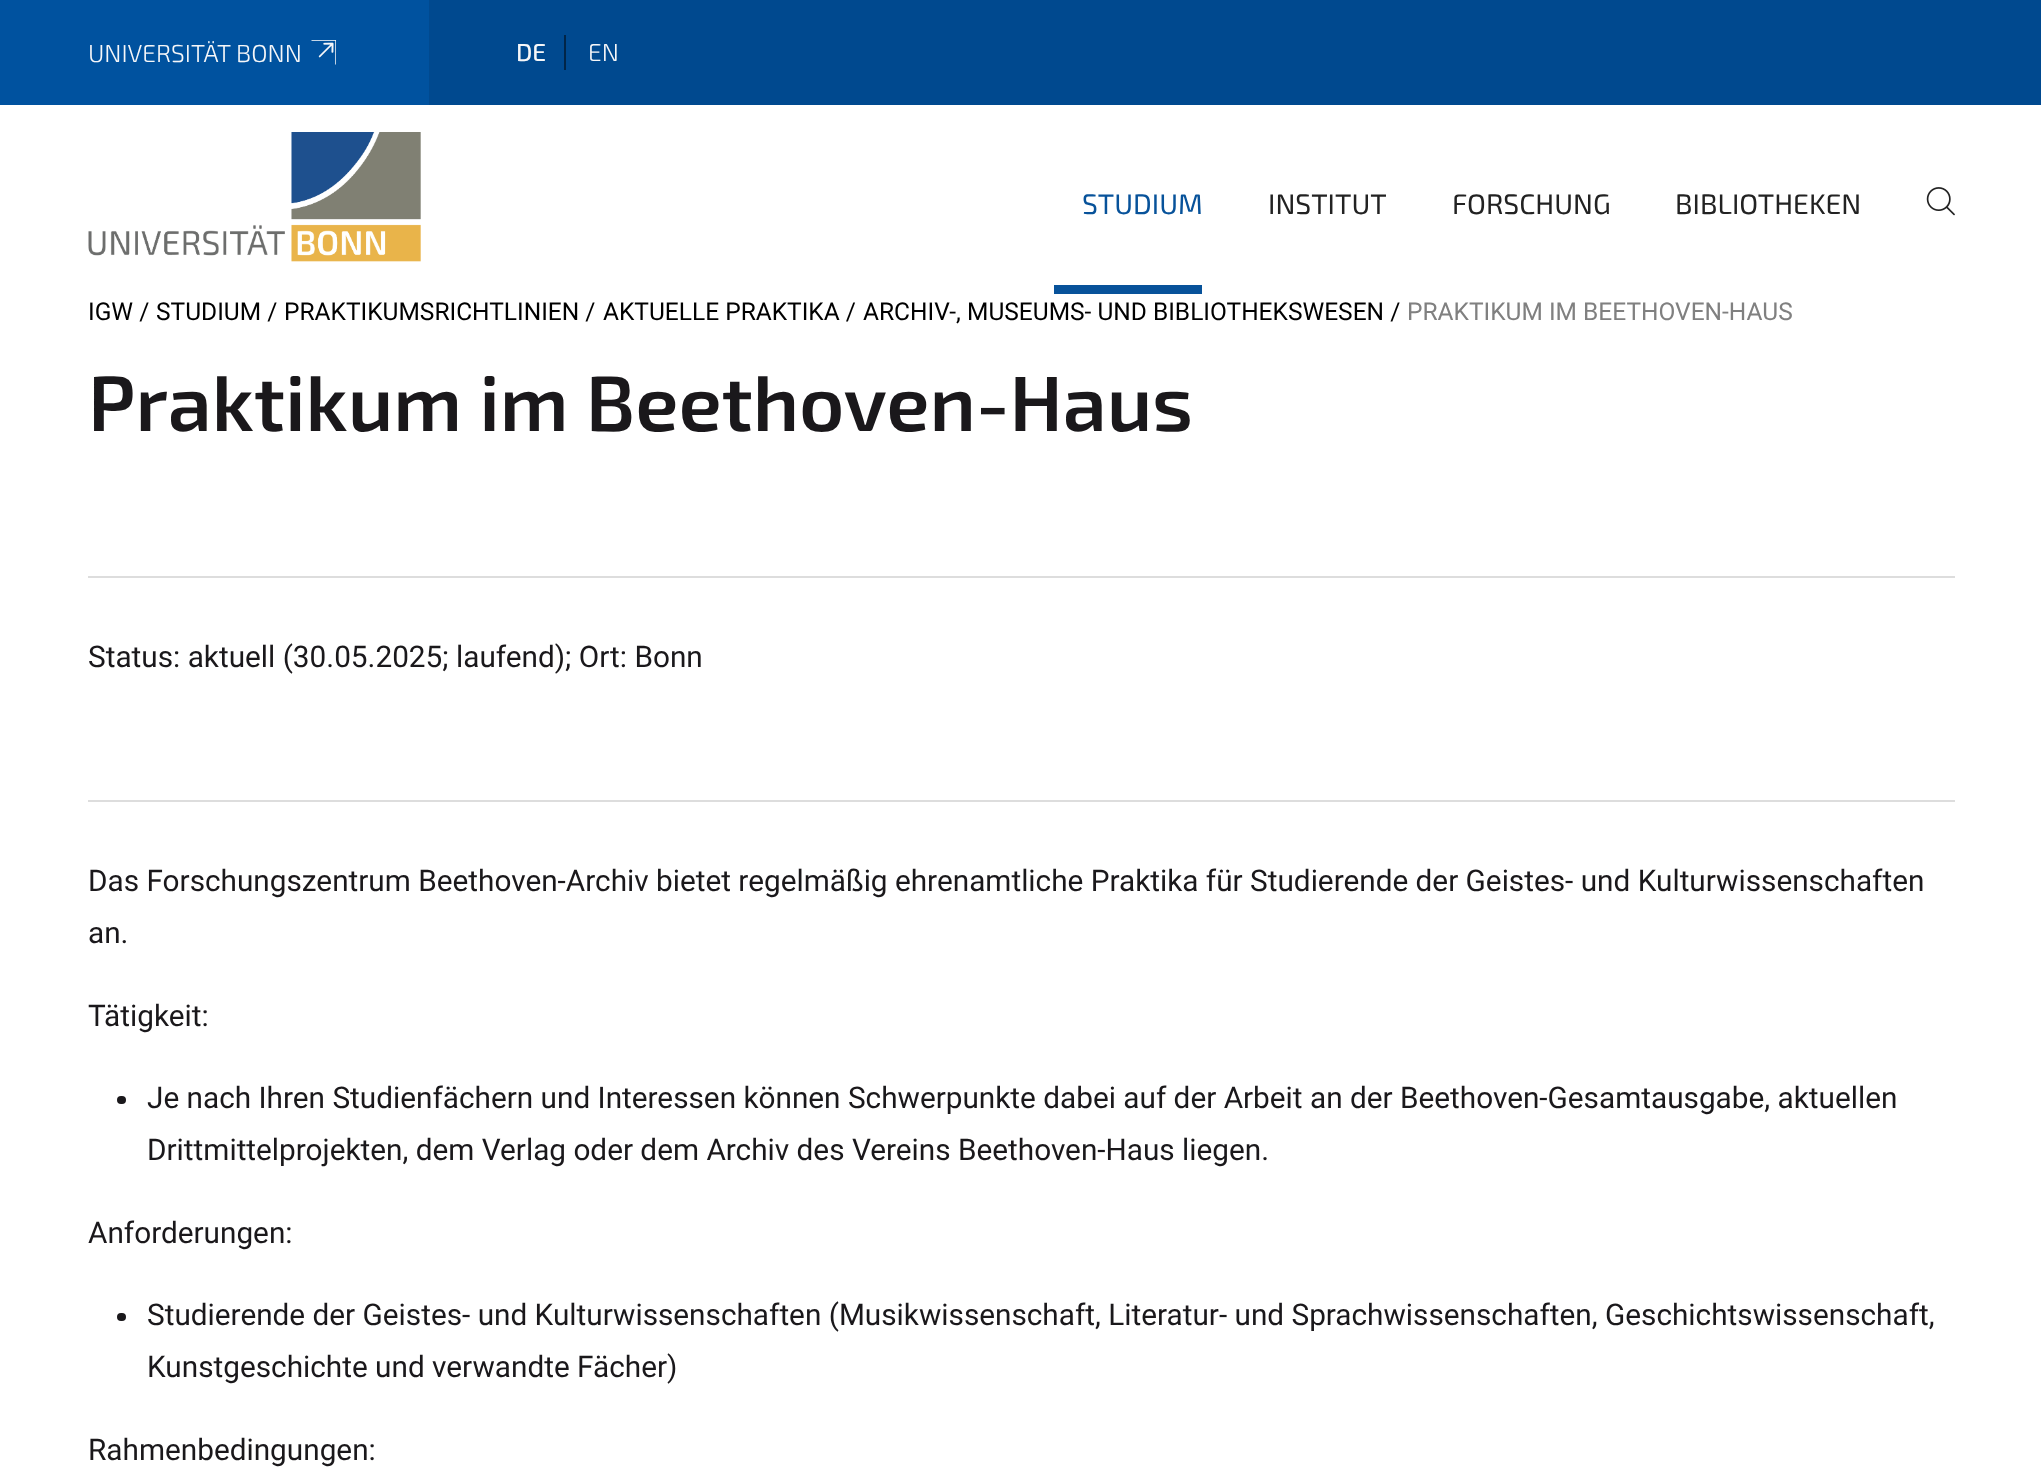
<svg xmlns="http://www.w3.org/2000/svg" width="2041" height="1475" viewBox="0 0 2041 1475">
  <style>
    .t1 { font: 300 24.5px 'Exo 2'; fill: #f6f7f9; }
    .t2 { font: 500 24.5px 'Exo 2'; fill: #f6f7f9; }
    .t3 { font: 28.25px 'Exo 2'; fill: #07529a; }
    .t4 { font: 28.25px 'Exo 2'; fill: #222; }
    .t5 { font: 24.5px Roboto; fill: #000; }
    .t6 { font: 24.5px Roboto; fill: #808080; }
    .t7 { font: 600 78.25px 'Exo 2'; fill: #1a181b; }
    .t8 { font: 29.75px Roboto; fill: #1a181b; }
  </style>
  <rect width="100%" height="100%" fill="#fff"/>
  <rect x="429" y="0" width="1612" height="105" fill="#00498f"/>
  <rect x="0" y="0" width="429" height="105" fill="#00529f"/>
  <text x="88" y="62" class="t1">UNIVERSITÄT BONN</text>
  <image x="311" y="40" width="25" height="25" href="images/1.png"/>
  <rect x="564" y="35" width="2" height="35" fill="#012548"/>
  <text x="516" y="61" class="t2">DE</text>
  <text x="588" y="61" class="t1">EN</text>
  <image x="88" y="132" width="333" height="130" href="images/2.png"/>
  <rect x="1054" y="285" width="148" height="9" fill="#07529a"/>
  <text x="1082" y="214" class="t3">STUDIUM</text>
  <text x="1268" y="214" class="t4">INSTITUT</text>
  <text x="1452" y="214" class="t4">FORSCHUNG</text>
  <text x="1675" y="214" class="t4">BIBLIOTHEKEN</text>
  <image x="1926" y="187" width="29" height="29" href="images/3.png"/>
  <text x="88" y="320" class="t5">IGW /</text>
  <text x="156" y="320" class="t5">STUDIUM /</text>
  <text x="284" y="320" class="t5">PRAKTIKUMSRICHTLINIEN /</text>
  <text x="603" y="320" class="t5">AKTUELLE PRAKTIKA /</text>
  <text x="863" y="320" class="t5">ARCHIV-, MUSEUMS- UND BIBLIOTHEKSWESEN /</text>
  <text x="1407" y="320" class="t6">PRAKTIKUM IM BEETHOVEN-HAUS</text>
  <text x="88" y="431" class="t7">Praktikum im Beethoven-Haus</text>
  <rect x="88" y="576" width="1867" height="2" fill="#ddd"/>
  <text x="88" y="667" class="t8">Status: aktuell (30.05.2025; laufend); Ort: Bonn</text>
  <rect x="88" y="800" width="1867" height="2" fill="#ddd"/>
  <text x="88" y="891" class="t8">Das Forschungszentrum Beethoven-Archiv bietet regelmäßig ehrenamtliche Praktika für Studierende der Geistes- und Kulturwissenschaften</text>
  <text x="88" y="943" class="t8">an.</text>
  <text x="88" y="1026" class="t8">Tätigkeit:</text>
  <rect x="117" y="1096" width="9" height="8" rx="4" fill="#1a181b"/>
  <text x="147" y="1108" class="t8">Je nach Ihren Studienfächern und Interessen können Schwerpunkte dabei auf der Arbeit an der Beethoven-Gesamtausgabe, aktuellen</text>
  <text x="147" y="1160" class="t8">Drittmittelprojekten, dem Verlag oder dem Archiv des Vereins Beethoven-Haus liegen.</text>
  <text x="88" y="1243" class="t8">Anforderungen:</text>
  <rect x="117" y="1313" width="9" height="8" rx="4" fill="#1a181b"/>
  <text x="147" y="1325" class="t8">Studierende der Geistes- und Kulturwissenschaften (Musikwissenschaft, Literatur- und Sprachwissenschaften, Geschichtswissenschaft,</text>
  <text x="147" y="1377" class="t8">Kunstgeschichte und verwandte Fächer)</text>
  <text x="88" y="1460" class="t8">Rahmenbedingungen:</text>
</svg>
